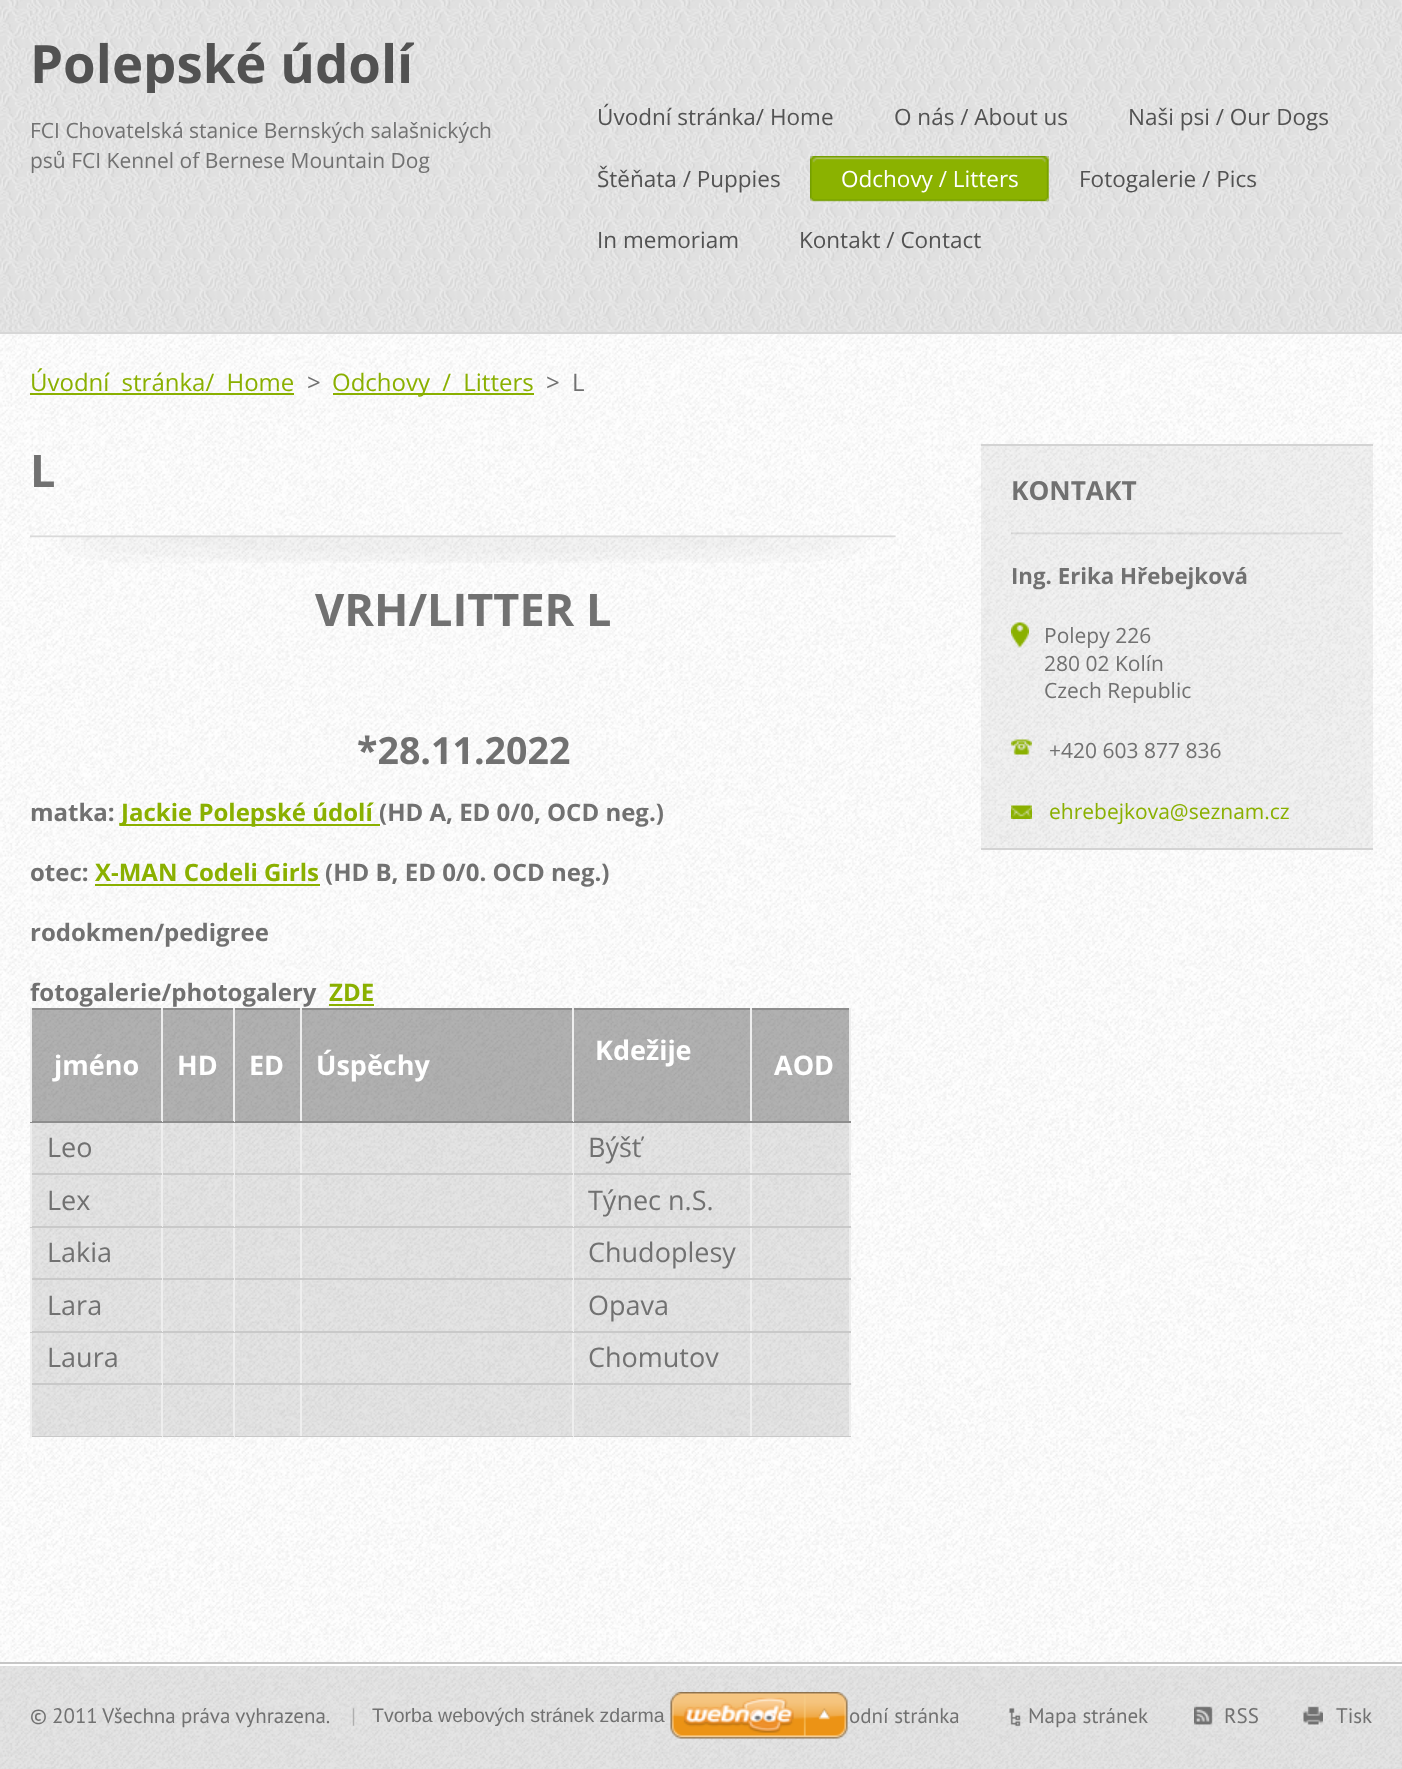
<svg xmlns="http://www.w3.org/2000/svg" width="1402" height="1769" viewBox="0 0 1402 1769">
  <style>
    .t1 { font: bold 52.75px Open Sans; fill: #525252; }
    .t2 { font: 21px Open Sans; fill: #717171; }
    .t3 { font: 22.5px Open Sans; fill: #525252; }
    .t4 { font: 22.5px Open Sans; fill: #fff; }
    .t5 { font: 24px Open Sans; fill: #8ab000; }
    .t6 { font: 24px Open Sans; fill: #717171; }
    .t7 { font: bold 45px Open Sans; fill: #717171; }
    .t8 { font: bold 37.5px Open Sans; fill: #717171; }
    .t9 { font: bold 24px Open Sans; fill: #717171; }
    .t10 { font: bold 24px Open Sans; fill: #8ab000; }
    .t11 { font: bold 27px Open Sans; fill: #fff; }
    .t12 { font: 27px Open Sans; fill: #717171; }
    .t13 { font: bold 26.25px Open Sans; fill: #717171; }
    .t14 { font: bold 22.25px Open Sans; fill: #717171; }
    .t15 { font: 21px Open Sans; fill: #8ab000; }
    .t16 { font: 21px PT Sans; fill: #717171; }
    .t17 { font: 21px PT Sans; fill: #afafaf; }
    .t18 { font: 19.5px Liberation Sans; fill: #717171; }
  </style>
  <defs>
    <clipPath id="clip1"><rect x="30" y="30" width="384" height="63"/></clipPath>
  </defs>
  <rect width="100%" height="100%" fill="#fff"/>
  <image x="0" y="334" width="1402" height="1435" href="images/1.png"/>
  <image x="0" y="0" width="1402" height="332" href="images/2.png"/>
  <rect x="0" y="332" width="1402" height="2" fill="#d7d7d7"/>
  <g clip-path="url(#clip1)">
    <text x="30" y="83" class="t1">Polepské údolí</text>
  </g>
  <text x="30" y="138" class="t2">FCI Chovatelská stanice Bernských salašnických</text>
  <text x="30" y="168" class="t2">psů FCI Kennel of Bernese Mountain Dog</text>
  <text x="597" y="125" class="t3">Úvodní stránka/ Home</text>
  <text x="894" y="125" class="t3">O nás / About us</text>
  <text x="1128" y="125" class="t3">Naši psi / Our Dogs</text>
  <text x="597" y="187" class="t3">Štěňata / Puppies</text>
  <image x="810" y="156" width="239" height="46" href="images/3.png"/>
  <text x="841" y="187" class="t4">Odchovy / Litters</text>
  <text x="1079" y="187" class="t3">Fotogalerie / Pics</text>
  <text x="597" y="248" class="t3">In memoriam</text>
  <text x="799" y="248" class="t3">Kontakt / Contact</text>
  <text x="30" y="391" word-spacing="6" class="t5">Úvodní stránka/ Home</text>
  <rect x="30" y="393" width="264" height="2" fill="#8ab000"/>
  <text x="307" y="391" class="t6">&gt;</text>
  <rect x="333" y="393" width="201" height="2" fill="#8ab000"/>
  <text x="332" y="391" word-spacing="6" class="t5">Odchovy / Litters</text>
  <text x="546" y="391" class="t6">&gt;</text>
  <text x="572" y="391" class="t6">L</text>
  <image x="30" y="535" width="866" height="28" href="images/4.png"/>
  <text x="30" y="487" class="t7">L</text>
  <text x="315" y="626" class="t7">VRH/LITTER L</text>
  <text x="357" y="764" class="t8">*28.11.2022</text>
  <text x="30" y="821" class="t9">matka:</text>
  <rect x="122" y="824" width="258" height="2" fill="#8ab000"/>
  <text x="121" y="821" class="t10">Jackie Polepské údolí</text>
  <text x="379" y="821" class="t9">(HD A, ED 0/0, OCD neg.)</text>
  <text x="30" y="881" class="t9">otec:</text>
  <text x="95" y="881" class="t10">X-MAN Codeli Girls</text>
  <rect x="95" y="884" width="225" height="2" fill="#8ab000"/>
  <text x="325" y="881" class="t9">(HD B, ED 0/0. OCD neg.)</text>
  <text x="30" y="941" class="t9">rodokmen/pedigree</text>
  <text x="30" y="1001" class="t9">fotogalerie/photogalery</text>
  <text x="329" y="1001" class="t10">ZDE</text>
  <rect x="329" y="1004" width="45" height="2" fill="#8ab000"/>
  <rect x="32" y="1010" width="129" height="111" fill="#0000004d"/>
  <rect x="30" y="1008" width="821" height="2" fill="#8d8d8d"/>
  <rect x="849" y="1121" width="2" height="316" fill="#eee"/>
  <rect x="849" y="1008" width="2" height="114" fill="#eee"/>
  <rect x="750" y="1436" width="101" height="1" fill="#c9c9c9"/>
  <rect x="750" y="1383" width="2" height="54" fill="#eee"/>
  <rect x="750" y="1383" width="101" height="2" fill="#c9c9c9"/>
  <rect x="750" y="1331" width="2" height="54" fill="#eee"/>
  <rect x="750" y="1331" width="101" height="2" fill="#c9c9c9"/>
  <rect x="750" y="1278" width="2" height="54" fill="#eee"/>
  <rect x="750" y="1278" width="101" height="2" fill="#c9c9c9"/>
  <rect x="750" y="1226" width="2" height="54" fill="#eee"/>
  <rect x="750" y="1226" width="101" height="2" fill="#c9c9c9"/>
  <rect x="750" y="1173" width="2" height="54" fill="#eee"/>
  <rect x="750" y="1173" width="101" height="2" fill="#c9c9c9"/>
  <rect x="750" y="1121" width="2" height="54" fill="#eee"/>
  <rect x="750" y="1121" width="101" height="2" fill="#8d8d8d"/>
  <rect x="750" y="1008" width="2" height="114" fill="#eee"/>
  <rect x="572" y="1436" width="180" height="1" fill="#c9c9c9"/>
  <rect x="572" y="1383" width="2" height="54" fill="#eee"/>
  <rect x="572" y="1383" width="180" height="2" fill="#c9c9c9"/>
  <rect x="572" y="1331" width="2" height="54" fill="#eee"/>
  <rect x="572" y="1331" width="180" height="2" fill="#c9c9c9"/>
  <rect x="572" y="1278" width="2" height="54" fill="#eee"/>
  <rect x="572" y="1278" width="180" height="2" fill="#c9c9c9"/>
  <rect x="572" y="1226" width="2" height="54" fill="#eee"/>
  <rect x="572" y="1226" width="180" height="2" fill="#c9c9c9"/>
  <rect x="572" y="1173" width="2" height="54" fill="#eee"/>
  <rect x="572" y="1173" width="180" height="2" fill="#c9c9c9"/>
  <rect x="572" y="1121" width="2" height="54" fill="#eee"/>
  <rect x="572" y="1121" width="180" height="2" fill="#8d8d8d"/>
  <rect x="572" y="1008" width="2" height="114" fill="#eee"/>
  <rect x="300" y="1436" width="273" height="1" fill="#c9c9c9"/>
  <rect x="300" y="1383" width="2" height="54" fill="#eee"/>
  <rect x="300" y="1383" width="273" height="2" fill="#c9c9c9"/>
  <rect x="300" y="1331" width="2" height="54" fill="#eee"/>
  <rect x="300" y="1331" width="273" height="2" fill="#c9c9c9"/>
  <rect x="300" y="1278" width="2" height="54" fill="#eee"/>
  <rect x="300" y="1278" width="273" height="2" fill="#c9c9c9"/>
  <rect x="300" y="1226" width="2" height="54" fill="#eee"/>
  <rect x="300" y="1226" width="273" height="2" fill="#c9c9c9"/>
  <rect x="300" y="1173" width="2" height="54" fill="#eee"/>
  <rect x="300" y="1173" width="273" height="2" fill="#c9c9c9"/>
  <rect x="300" y="1121" width="2" height="54" fill="#eee"/>
  <rect x="300" y="1121" width="273" height="2" fill="#8d8d8d"/>
  <rect x="300" y="1008" width="2" height="114" fill="#eee"/>
  <rect x="233" y="1436" width="69" height="1" fill="#c9c9c9"/>
  <rect x="233" y="1383" width="2" height="54" fill="#eee"/>
  <rect x="233" y="1383" width="69" height="2" fill="#c9c9c9"/>
  <rect x="233" y="1331" width="2" height="54" fill="#eee"/>
  <rect x="233" y="1331" width="69" height="2" fill="#c9c9c9"/>
  <rect x="233" y="1278" width="2" height="54" fill="#eee"/>
  <rect x="233" y="1278" width="69" height="2" fill="#c9c9c9"/>
  <rect x="233" y="1226" width="2" height="54" fill="#eee"/>
  <rect x="233" y="1226" width="69" height="2" fill="#c9c9c9"/>
  <rect x="233" y="1173" width="2" height="54" fill="#eee"/>
  <rect x="233" y="1173" width="69" height="2" fill="#c9c9c9"/>
  <rect x="233" y="1121" width="2" height="54" fill="#eee"/>
  <rect x="233" y="1121" width="69" height="2" fill="#8d8d8d"/>
  <rect x="233" y="1008" width="2" height="114" fill="#eee"/>
  <rect x="161" y="1436" width="73" height="1" fill="#c9c9c9"/>
  <rect x="161" y="1383" width="2" height="54" fill="#eee"/>
  <rect x="161" y="1383" width="73" height="2" fill="#c9c9c9"/>
  <rect x="161" y="1331" width="2" height="54" fill="#eee"/>
  <rect x="161" y="1331" width="73" height="2" fill="#c9c9c9"/>
  <rect x="161" y="1278" width="2" height="54" fill="#eee"/>
  <rect x="161" y="1278" width="73" height="2" fill="#c9c9c9"/>
  <rect x="161" y="1226" width="2" height="54" fill="#eee"/>
  <rect x="161" y="1226" width="73" height="2" fill="#c9c9c9"/>
  <rect x="161" y="1173" width="2" height="54" fill="#eee"/>
  <rect x="161" y="1173" width="73" height="2" fill="#c9c9c9"/>
  <rect x="161" y="1121" width="2" height="54" fill="#eee"/>
  <rect x="161" y="1121" width="73" height="2" fill="#8d8d8d"/>
  <rect x="161" y="1008" width="2" height="114" fill="#eee"/>
  <rect x="30" y="1436" width="132" height="1" fill="#c9c9c9"/>
  <rect x="30" y="1383" width="2" height="54" fill="#eee"/>
  <rect x="30" y="1383" width="132" height="2" fill="#c9c9c9"/>
  <rect x="30" y="1331" width="2" height="54" fill="#eee"/>
  <rect x="30" y="1331" width="132" height="2" fill="#c9c9c9"/>
  <rect x="30" y="1278" width="2" height="54" fill="#eee"/>
  <rect x="30" y="1278" width="132" height="2" fill="#c9c9c9"/>
  <rect x="30" y="1226" width="2" height="54" fill="#eee"/>
  <rect x="30" y="1226" width="132" height="2" fill="#c9c9c9"/>
  <rect x="30" y="1173" width="2" height="54" fill="#eee"/>
  <rect x="30" y="1173" width="132" height="2" fill="#c9c9c9"/>
  <rect x="30" y="1121" width="2" height="54" fill="#eee"/>
  <rect x="30" y="1121" width="132" height="2" fill="#8d8d8d"/>
  <rect x="30" y="1008" width="2" height="114" fill="#eee"/>
  <text x="54" y="1075" class="t11">jméno</text>
  <rect x="163" y="1010" width="70" height="111" fill="#0000004d"/>
  <text x="177" y="1075" class="t11">HD</text>
  <rect x="235" y="1010" width="65" height="111" fill="#0000004d"/>
  <text x="249" y="1075" class="t11">ED</text>
  <rect x="302" y="1010" width="270" height="111" fill="#0000004d"/>
  <text x="316" y="1075" class="t11">Úspěchy</text>
  <rect x="574" y="1010" width="176" height="111" fill="#0000004d"/>
  <text x="595" y="1060" class="t11">Kdežije</text>
  <rect x="752" y="1010" width="97" height="111" fill="#0000004d"/>
  <text x="774" y="1075" class="t11">AOD</text>
  <rect x="32" y="1385" width="129" height="51" fill="#0000001a"/>
  <rect x="163" y="1385" width="70" height="51" fill="#0000001a"/>
  <rect x="235" y="1385" width="65" height="51" fill="#0000001a"/>
  <rect x="302" y="1385" width="270" height="51" fill="#0000001a"/>
  <rect x="574" y="1385" width="176" height="51" fill="#0000001a"/>
  <rect x="752" y="1385" width="97" height="51" fill="#0000001a"/>
  <rect x="32" y="1123" width="129" height="50" fill="#0000001a"/>
  <text x="47" y="1157" class="t12">Leo</text>
  <rect x="163" y="1123" width="70" height="50" fill="#0000001a"/>
  <rect x="235" y="1123" width="65" height="50" fill="#0000001a"/>
  <rect x="302" y="1123" width="270" height="50" fill="#0000001a"/>
  <rect x="574" y="1123" width="176" height="50" fill="#0000001a"/>
  <text x="588" y="1157" class="t12">Býšť</text>
  <rect x="752" y="1123" width="97" height="50" fill="#0000001a"/>
  <rect x="32" y="1175" width="129" height="51" fill="#0000001a"/>
  <text x="47" y="1210" class="t12">Lex</text>
  <rect x="163" y="1175" width="70" height="51" fill="#0000001a"/>
  <rect x="235" y="1175" width="65" height="51" fill="#0000001a"/>
  <rect x="302" y="1175" width="270" height="51" fill="#0000001a"/>
  <rect x="574" y="1175" width="176" height="51" fill="#0000001a"/>
  <text x="588" y="1210" class="t12">Týnec n.S.</text>
  <rect x="752" y="1175" width="97" height="51" fill="#0000001a"/>
  <rect x="32" y="1228" width="129" height="50" fill="#0000001a"/>
  <text x="47" y="1262" class="t12">Lakia</text>
  <rect x="163" y="1228" width="70" height="50" fill="#0000001a"/>
  <rect x="235" y="1228" width="65" height="50" fill="#0000001a"/>
  <rect x="302" y="1228" width="270" height="50" fill="#0000001a"/>
  <rect x="574" y="1228" width="176" height="50" fill="#0000001a"/>
  <text x="588" y="1262" class="t12">Chudoplesy</text>
  <rect x="752" y="1228" width="97" height="50" fill="#0000001a"/>
  <rect x="32" y="1280" width="129" height="51" fill="#0000001a"/>
  <text x="47" y="1315" class="t12">Lara</text>
  <rect x="163" y="1280" width="70" height="51" fill="#0000001a"/>
  <rect x="235" y="1280" width="65" height="51" fill="#0000001a"/>
  <rect x="302" y="1280" width="270" height="51" fill="#0000001a"/>
  <rect x="574" y="1280" width="176" height="51" fill="#0000001a"/>
  <text x="588" y="1315" class="t12">Opava</text>
  <rect x="752" y="1280" width="97" height="51" fill="#0000001a"/>
  <rect x="32" y="1333" width="129" height="50" fill="#0000001a"/>
  <text x="47" y="1367" class="t12">Laura</text>
  <rect x="163" y="1333" width="70" height="50" fill="#0000001a"/>
  <rect x="235" y="1333" width="65" height="50" fill="#0000001a"/>
  <rect x="302" y="1333" width="270" height="50" fill="#0000001a"/>
  <rect x="574" y="1333" width="176" height="50" fill="#0000001a"/>
  <text x="588" y="1367" class="t12">Chomutov</text>
  <rect x="752" y="1333" width="97" height="50" fill="#0000001a"/>
  <rect x="981" y="446" width="392" height="402" fill="#0000000d"/>
  <rect x="981" y="444" width="392" height="2" fill="#d3d3d3"/>
  <rect x="981" y="848" width="392" height="2" fill="#d3d3d3"/>
  <image x="1011" y="532" width="332" height="3" href="images/5.png"/>
  <text x="1011" y="500" class="t13">KONTAKT</text>
  <text x="1011" y="584" class="t14">Ing. Erika Hřebejková</text>
  <image x="1011" y="622" width="18" height="26" href="images/6.png"/>
  <text x="1044" y="643" class="t2">Polepy 226</text>
  <text x="1044" y="671" class="t2">280 02 Kolín</text>
  <text x="1044" y="698" class="t2">Czech Republic</text>
  <image x="1011" y="739" width="21" height="16" href="images/7.png"/>
  <text x="1049" y="758" class="t2">+420 603 877 836</text>
  <image x="1011" y="805" width="21" height="14" href="images/8.png"/>
  <text x="1049" y="819" class="t15">ehrebejkova@seznam.cz</text>
  <rect x="0" y="1662" width="1402" height="2" fill="#c6c6c6"/>
  <rect x="0" y="1666" width="1402" height="103" fill="#0000001a"/>
  <rect x="0" y="1664" width="1402" height="2" fill="#fff"/>
  <text x="30" y="1723" word-spacing="-0.5" class="t16">© 2011 Všechna práva vyhrazena.</text>
  <text x="351" y="1723" class="t17">|</text>
  <text x="849" y="1723" class="t16">odní stránka</text>
  <image x="1009" y="1708" width="12" height="19" href="images/9.png"/>
  <text x="1028" y="1723" class="t16">Mapa stránek</text>
  <image x="1194" y="1706" width="19" height="19" href="images/10.png"/>
  <text x="1224" y="1723" class="t16">RSS</text>
  <image x="1303" y="1706" width="20" height="19" href="images/11.png"/>
  <text x="1336" y="1723" class="t16">Tisk</text>
  <text x="372" y="1722" class="t18">Tvorba webových stránek zdarma</text>
  <image x="670" y="1692" width="178" height="47" href="images/12.png"/>
</svg>
